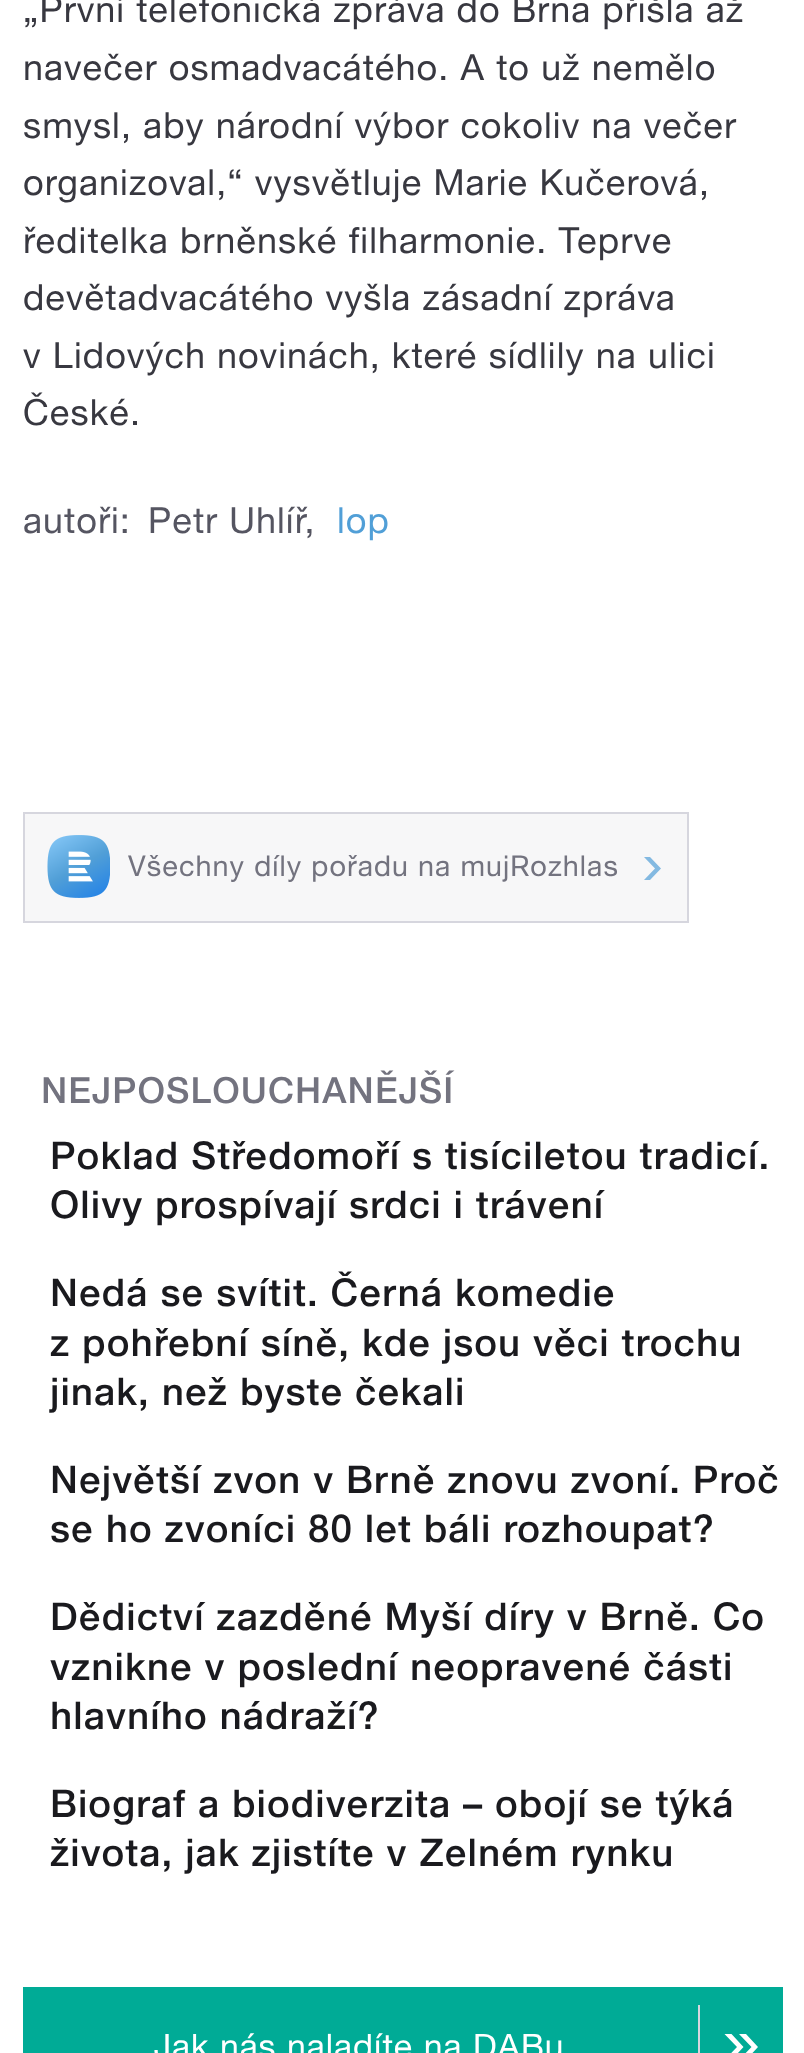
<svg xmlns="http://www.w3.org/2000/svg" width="804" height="2053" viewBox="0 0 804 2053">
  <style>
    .t1 { font: 36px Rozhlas; letter-spacing: 1.1px; fill: #383840; }
    .t2 { font: 36px Rozhlas; letter-spacing: 1.1px; fill: #555561; }
    .t3 { font: 36px Rozhlas; letter-spacing: 1.1px; fill: #519fd7; }
    .t4 { font: 28.75px Rozhlas; letter-spacing: 1.1px; fill: #73737f; }
    .t5 { font: 500 36px Rozhlas; letter-spacing: 1.1px; fill: #73737f; }
    .t6 { font: 500 38.25px Rozhlas; letter-spacing: 1.1px; fill: #1a1a1e; }
    .t7 { font: 33.75px Rozhlas; letter-spacing: 1.1px; fill: #fff; }
  </style>
  <rect width="100%" height="100%" fill="#fff"/>
  <text x="23" y="22" class="t1">„První telefonická zpráva do Brna přišla až</text>
  <text x="23" y="80" class="t1">navečer osmadvacátého. A to už nemělo</text>
  <text x="23" y="138" class="t1">smysl, aby národní výbor cokoliv na večer</text>
  <text x="23" y="195" class="t1">organizoval,“ vysvětluje Marie Kučerová,</text>
  <text x="23" y="253" class="t1">ředitelka brněnské filharmonie. Teprve</text>
  <text x="23" y="310" class="t1">devětadvacátého vyšla zásadní zpráva</text>
  <text x="23" y="368" class="t1">v Lidových novinách, které sídlily na ulici</text>
  <text x="23" y="425" class="t1">České.</text>
  <text x="23" y="533" class="t2">autoři:</text>
  <text x="148" y="533" class="t2">Petr Uhlíř,</text>
  <text x="337" y="533" class="t3">lop</text>
  <rect x="25" y="814" width="662" height="107" fill="#f7f7f8"/>
  <image x="47" y="835" width="63" height="63" href="images/1.png"/>
  <rect x="24" y="813" width="664" height="109" fill="none" stroke="#d6d6de" stroke-width="2"/>
  <text x="128" y="876" class="t4">Všechny díly pořadu na mujRozhlas</text>
  <path d="M650 880H644L655 868.5L644 857H650L661 868.5Z" fill="#83b9e1"/>
  <text x="41" y="1103" class="t5">NEJPOSLOUCHANĚJŠÍ</text>
  <text x="50" y="1169" class="t6">Poklad Středomoří s tisíciletou tradicí.</text>
  <text x="50" y="1218" class="t6">Olivy prospívají srdci i trávení</text>
  <text x="50" y="1306" class="t6">Nedá se svítit. Černá komedie</text>
  <text x="50" y="1356" class="t6">z pohřební síně, kde jsou věci trochu</text>
  <text x="50" y="1405" class="t6">jinak, než byste čekali</text>
  <text x="50" y="1493" class="t6">Největší zvon v Brně znovu zvoní. Proč</text>
  <text x="50" y="1542" class="t6">se ho zvoníci 80 let báli rozhoupat?</text>
  <text x="50" y="1630" class="t6">Dědictví zazděné Myší díry v Brně. Co</text>
  <text x="50" y="1680" class="t6">vznikne v poslední neopravené části</text>
  <text x="50" y="1729" class="t6">hlavního nádraží?</text>
  <text x="50" y="1817" class="t6">Biograf a biodiverzita – obojí se týká</text>
  <text x="50" y="1866" class="t6">života, jak zjistíte v Zelném rynku</text>
  <rect x="23" y="1987" width="760" height="66" fill="#00ab96"/>
  <rect x="698" y="2005" width="2" height="48" fill="#d6d6de"/>
  <text x="154" y="2058" class="t7">Jak nás naladíte na DABu</text>
  <path d="M731.5 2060H724.5L737 2047L724.5 2034H731.5L743.5 2047ZM746 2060H739L751.5 2047L739 2034H746L758 2047Z" fill="#fff"/>
</svg>
